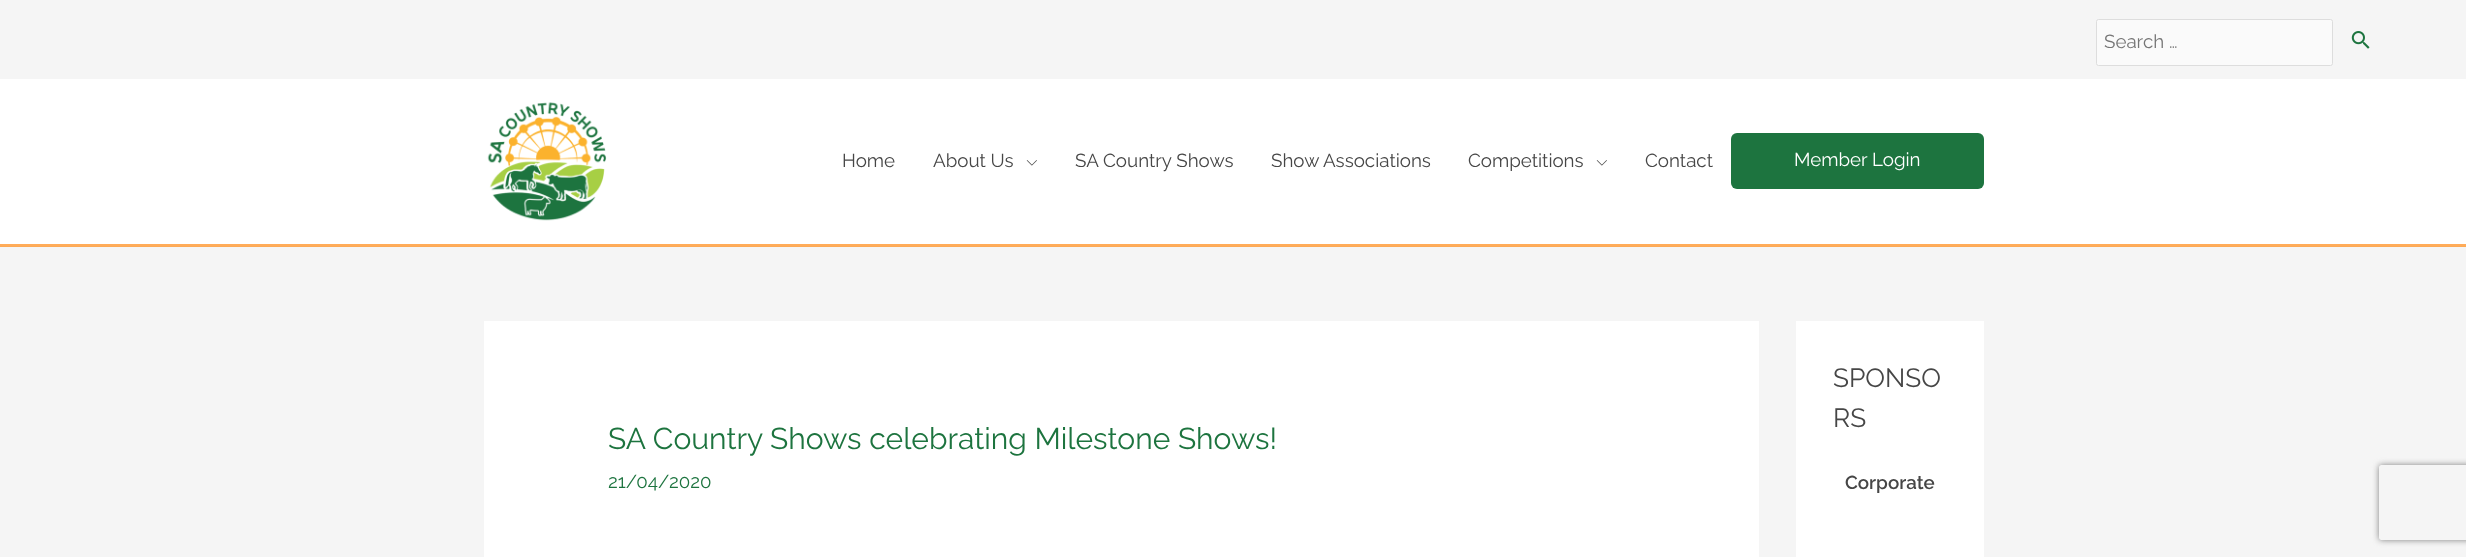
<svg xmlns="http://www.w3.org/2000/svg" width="2466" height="557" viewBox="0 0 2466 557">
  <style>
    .t1 { font: 18.75px Raleway; fill: #757575; }
    .t2 { font: 18.75px Raleway; fill: #464646; }
    .t3 { font: 18.75px Raleway; fill: #fff; }
    .t4 { font: 30px Raleway; fill: #1d743f; }
    .t5 { font: 18.75px Raleway; fill: #1d743f; }
    .t6 { font: 26.25px Raleway; fill: #464646; }
    .t7 { font: 600 18.75px Raleway; fill: #464646; }
  </style>
  <defs>
    <clipPath id="clip1"><path d="M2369 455H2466V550H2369ZM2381.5 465H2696.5C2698 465 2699 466 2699 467.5V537.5C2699 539 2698 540 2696.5 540H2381.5C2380 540 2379 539 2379 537.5V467.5C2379 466 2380 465 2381.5 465Z" clip-rule="evenodd"/></clipPath>
  </defs>
  <rect width="100%" height="100%" fill="#f5f5f5"/>
  <rect x="0" y="246" width="2466" height="1" fill="#fca956"/>
  <rect x="2096.5" y="19.5" width="236" height="46" rx="2" fill="#fafafa" stroke="#ddd"/>
  <text x="2104" y="48" class="t1">Search …</text>
  <image x="2351" y="31" width="19" height="18" href="images/1.png"/>
  <rect x="0" y="79" width="2466" height="165" fill="#fff"/>
  <rect x="0" y="244" width="2466" height="2" fill="#ffac59"/>
  <image x="487" y="102" width="120" height="119" href="images/2.png"/>
  <text x="842" y="167" class="t2">Home</text>
  <text x="933" y="167" class="t2">About Us</text>
  <image x="1026" y="160" width="11" height="6" href="images/3.png"/>
  <text x="1075" y="167" class="t2">SA Country Shows</text>
  <text x="1271" y="167" class="t2">Show Associations</text>
  <text x="1468" y="167" class="t2">Competitions</text>
  <image x="1596" y="160" width="11" height="6" href="images/3.png"/>
  <text x="1645" y="167" class="t2">Contact</text>
  <rect x="1731" y="133" width="253" height="56" rx="6" fill="#1d743f"/>
  <text x="1794" y="166" class="t3">Member Login</text>
  <rect x="484" y="321" width="1275" height="236" fill="#fff"/>
  <text x="608" y="449" class="t4">SA Country Shows celebrating Milestone Shows!</text>
  <text x="608" y="488" class="t5">21/04/2020</text>
  <rect x="1796" y="321" width="188" height="236" fill="#fff"/>
  <text x="1833" y="387" class="t6">SPONSO</text>
  <text x="1833" y="427" class="t6">RS</text>
  <text x="1845" y="489" class="t7">Corporate</text>
  <g clip-path="url(#clip1)">
    <rect x="2379" y="465" width="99" height="75" rx="2.5" fill="#808080" filter="blur(3px)"/>
  </g>
</svg>
